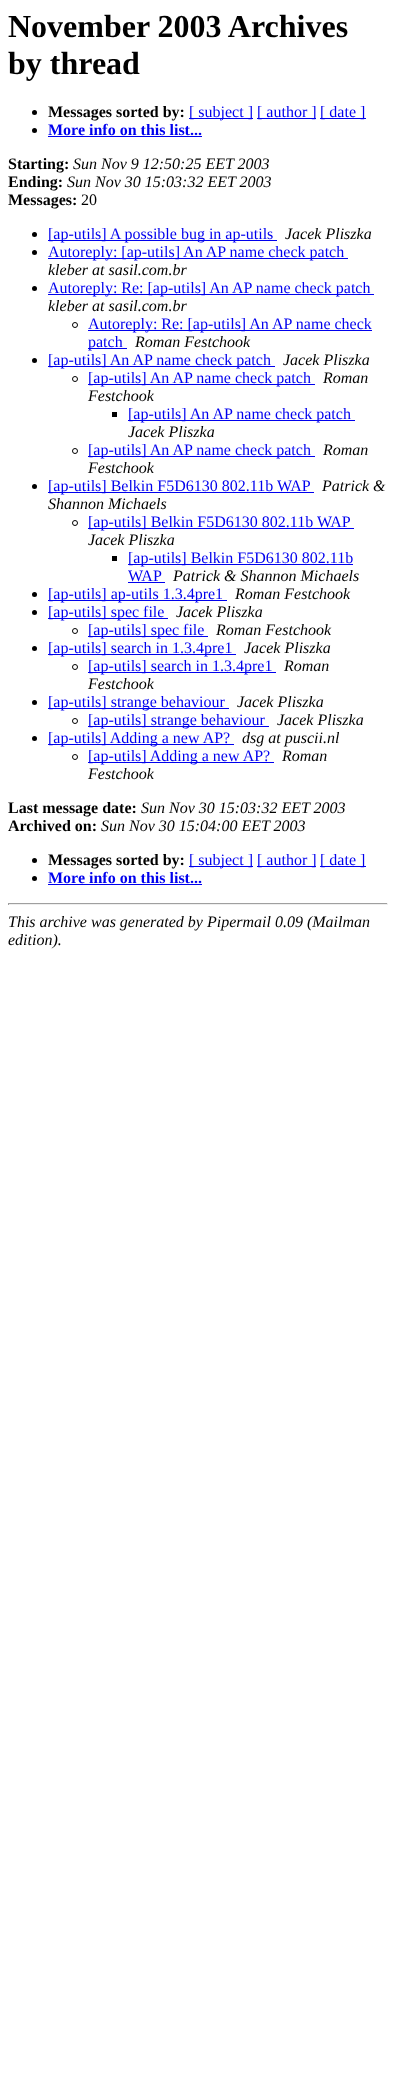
<svg xmlns="http://www.w3.org/2000/svg" width="396" height="2087" viewBox="0 0 396 2087">
  <style>
    .t1 { font: bold 32px Liberation Serif; fill: #000; }
    .t2 { font: bold 16px Liberation Serif; fill: #000; }
    .t3 { font: 16px Liberation Serif; fill: #00e; }
    .t4 { font: bold 16px Liberation Serif; fill: #00e; }
    .t5 { font: italic 16px Liberation Serif; fill: #000; }
    .t6 { font: 16px Liberation Serif; fill: #000; }
  </style>
  <rect width="100%" height="100%" fill="#fff"/>
  <text x="8" y="37" class="t1">November 2003 Archives</text>
  <text x="8" y="74" class="t1">by thread</text>
  <circle cx="34.5" cy="112.5" r="2.5" fill="#000"/>
  <text x="48" y="117" class="t2">Messages sorted by:</text>
  <rect x="189" y="118" width="64" height="1" fill="#00e"/>
  <text x="189" y="117" class="t3">[ subject ]</text>
  <rect x="257" y="118" width="59" height="1" fill="#00e"/>
  <text x="257" y="117" class="t3">[ author ]</text>
  <rect x="320" y="118" width="46" height="1" fill="#00e"/>
  <text x="320" y="117" class="t3">[ date ]</text>
  <circle cx="34.5" cy="130.5" r="2.5" fill="#000"/>
  <text x="48" y="135" class="t4">More info on this list...</text>
  <rect x="48" y="136" width="154" height="1" fill="#00e"/>
  <text x="8" y="169" class="t2">Starting:</text>
  <text x="73" y="169" class="t5">Sun Nov 9 12:50:25 EET 2003</text>
  <text x="8" y="187" class="t2">Ending:</text>
  <text x="67" y="187" class="t5">Sun Nov 30 15:03:32 EET 2003</text>
  <text x="8" y="205" class="t2">Messages:</text>
  <text x="81" y="205" class="t6">20</text>
  <circle cx="34.5" cy="234.5" r="2.5" fill="#000"/>
  <rect x="48" y="240" width="229" height="1" fill="#00e"/>
  <text x="48" y="239" class="t3">[ap-utils] A possible bug in ap-utils</text>
  <text x="285" y="239" class="t5">Jacek Pliszka</text>
  <circle cx="34.5" cy="252.5" r="2.5" fill="#000"/>
  <rect x="48" y="258" width="300" height="1" fill="#00e"/>
  <text x="48" y="257" class="t3">Autoreply: [ap-utils] An AP name check patch</text>
  <text x="48" y="275" class="t5">kleber at sasil.com.br</text>
  <circle cx="34.5" cy="288.5" r="2.5" fill="#000"/>
  <rect x="48" y="294" width="326" height="1" fill="#00e"/>
  <text x="48" y="293" class="t3">Autoreply: Re: [ap-utils] An AP name check patch</text>
  <text x="48" y="311" class="t5">kleber at sasil.com.br</text>
  <circle cx="75" cy="325" r="2.5" fill="none" stroke="#000"/>
  <rect x="88" y="330" width="284" height="1" fill="#00e"/>
  <text x="88" y="329" class="t3">Autoreply: Re: [ap-utils] An AP name check</text>
  <rect x="88" y="348" width="39" height="1" fill="#00e"/>
  <text x="88" y="347" class="t3">patch</text>
  <text x="135" y="347" class="t5">Roman Festchook</text>
  <circle cx="34.5" cy="360.5" r="2.5" fill="#000"/>
  <rect x="48" y="366" width="227" height="1" fill="#00e"/>
  <text x="48" y="365" class="t3">[ap-utils] An AP name check patch</text>
  <text x="283" y="365" class="t5">Jacek Pliszka</text>
  <circle cx="75" cy="379" r="2.5" fill="none" stroke="#000"/>
  <rect x="88" y="384" width="227" height="1" fill="#00e"/>
  <text x="88" y="383" class="t3">[ap-utils] An AP name check patch</text>
  <text x="323" y="383" class="t5">Roman</text>
  <text x="88" y="401" class="t5">Festchook</text>
  <rect x="112" y="412" width="5" height="5" fill="#000"/>
  <rect x="128" y="420" width="227" height="1" fill="#00e"/>
  <text x="128" y="419" class="t3">[ap-utils] An AP name check patch</text>
  <text x="128" y="437" class="t5">Jacek Pliszka</text>
  <circle cx="75" cy="451" r="2.5" fill="none" stroke="#000"/>
  <rect x="88" y="456" width="227" height="1" fill="#00e"/>
  <text x="88" y="455" class="t3">[ap-utils] An AP name check patch</text>
  <text x="323" y="455" class="t5">Roman</text>
  <text x="88" y="473" class="t5">Festchook</text>
  <circle cx="34.5" cy="486.5" r="2.5" fill="#000"/>
  <rect x="48" y="492" width="266" height="1" fill="#00e"/>
  <text x="48" y="491" class="t3">[ap-utils] Belkin F5D6130 802.11b WAP</text>
  <text x="322" y="491" class="t5">Patrick &amp;</text>
  <text x="48" y="509" class="t5">Shannon Michaels</text>
  <circle cx="75" cy="523" r="2.5" fill="none" stroke="#000"/>
  <rect x="88" y="528" width="266" height="1" fill="#00e"/>
  <text x="88" y="527" class="t3">[ap-utils] Belkin F5D6130 802.11b WAP</text>
  <text x="88" y="545" class="t5">Jacek Pliszka</text>
  <rect x="112" y="556" width="5" height="5" fill="#000"/>
  <rect x="128" y="564" width="225" height="1" fill="#00e"/>
  <text x="128" y="563" class="t3">[ap-utils] Belkin F5D6130 802.11b</text>
  <text x="128" y="581" class="t3">WAP</text>
  <rect x="128" y="582" width="37" height="1" fill="#00e"/>
  <text x="173" y="581" class="t5">Patrick &amp; Shannon Michaels</text>
  <circle cx="34.5" cy="594.5" r="2.5" fill="#000"/>
  <rect x="48" y="600" width="179" height="1" fill="#00e"/>
  <text x="48" y="599" class="t3">[ap-utils] ap-utils 1.3.4pre1</text>
  <text x="235" y="599" class="t5">Roman Festchook</text>
  <circle cx="34.5" cy="612.5" r="2.5" fill="#000"/>
  <rect x="48" y="618" width="120" height="1" fill="#00e"/>
  <text x="48" y="617" class="t3">[ap-utils] spec file</text>
  <text x="176" y="617" class="t5">Jacek Pliszka</text>
  <circle cx="75" cy="631" r="2.5" fill="none" stroke="#000"/>
  <rect x="88" y="636" width="120" height="1" fill="#00e"/>
  <text x="88" y="635" class="t3">[ap-utils] spec file</text>
  <text x="216" y="635" class="t5">Roman Festchook</text>
  <circle cx="34.5" cy="648.5" r="2.5" fill="#000"/>
  <rect x="48" y="654" width="188" height="1" fill="#00e"/>
  <text x="48" y="653" class="t3">[ap-utils] search in 1.3.4pre1</text>
  <text x="244" y="653" class="t5">Jacek Pliszka</text>
  <circle cx="75" cy="667" r="2.5" fill="none" stroke="#000"/>
  <rect x="88" y="672" width="188" height="1" fill="#00e"/>
  <text x="88" y="671" class="t3">[ap-utils] search in 1.3.4pre1</text>
  <text x="284" y="671" class="t5">Roman</text>
  <text x="88" y="689" class="t5">Festchook</text>
  <circle cx="34.5" cy="702.5" r="2.5" fill="#000"/>
  <rect x="48" y="708" width="181" height="1" fill="#00e"/>
  <text x="48" y="707" class="t3">[ap-utils] strange behaviour</text>
  <text x="237" y="707" class="t5">Jacek Pliszka</text>
  <circle cx="75" cy="721" r="2.5" fill="none" stroke="#000"/>
  <rect x="88" y="726" width="181" height="1" fill="#00e"/>
  <text x="88" y="725" class="t3">[ap-utils] strange behaviour</text>
  <text x="277" y="725" class="t5">Jacek Pliszka</text>
  <circle cx="34.5" cy="738.5" r="2.5" fill="#000"/>
  <rect x="48" y="744" width="186" height="1" fill="#00e"/>
  <text x="48" y="743" class="t3">[ap-utils] Adding a new AP?</text>
  <text x="242" y="743" class="t5">dsg at puscii.nl</text>
  <circle cx="75" cy="757" r="2.5" fill="none" stroke="#000"/>
  <rect x="88" y="762" width="186" height="1" fill="#00e"/>
  <text x="88" y="761" class="t3">[ap-utils] Adding a new AP?</text>
  <text x="282" y="761" class="t5">Roman</text>
  <text x="88" y="779" class="t5">Festchook</text>
  <text x="8" y="813" class="t2">Last message date:</text>
  <text x="141" y="813" class="t5">Sun Nov 30 15:03:32 EET 2003</text>
  <text x="8" y="831" class="t2">Archived on:</text>
  <text x="101" y="831" class="t5">Sun Nov 30 15:04:00 EET 2003</text>
  <circle cx="34.5" cy="860.5" r="2.5" fill="#000"/>
  <text x="48" y="865" class="t2">Messages sorted by:</text>
  <rect x="189" y="866" width="64" height="1" fill="#00e"/>
  <text x="189" y="865" class="t3">[ subject ]</text>
  <rect x="257" y="866" width="59" height="1" fill="#00e"/>
  <text x="257" y="865" class="t3">[ author ]</text>
  <rect x="320" y="866" width="46" height="1" fill="#00e"/>
  <text x="320" y="865" class="t3">[ date ]</text>
  <circle cx="34.5" cy="878.5" r="2.5" fill="#000"/>
  <text x="48" y="883" class="t4">More info on this list...</text>
  <rect x="48" y="884" width="154" height="1" fill="#00e"/>
  <rect x="8" y="903" width="380" height="1" fill="#9f9f9f"/>
  <rect x="387" y="903" width="1" height="2" fill="#eee"/>
  <rect x="8" y="904" width="380" height="1" fill="#eee"/>
  <rect x="8" y="903" width="1" height="2" fill="#9f9f9f"/>
  <text x="8" y="927" class="t5">This archive was generated by Pipermail 0.09 (Mailman</text>
  <text x="8" y="945" class="t5">edition).</text>
</svg>
